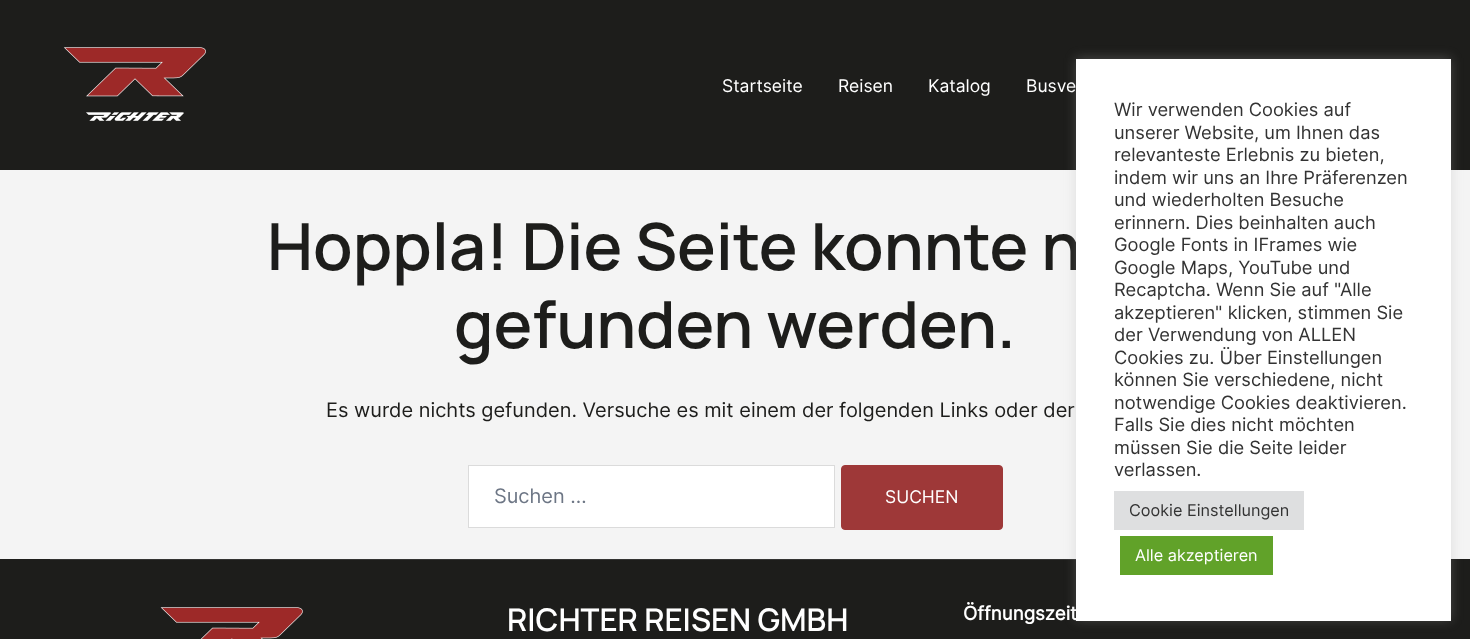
<svg xmlns="http://www.w3.org/2000/svg" width="1470" height="639" viewBox="0 0 1470 639">
  <style>
    .t1 { font: 17.5px Inter; fill: #fff; }
    .t2 { font: 200 65px Manrope; fill: #1d1d1b; }
    .t3 { font: 20px Inter; fill: #1d1d1b; }
    .t4 { font: 20px Inter; fill: #6d7685; }
    .t5 { font: 200 31.25px Manrope; fill: #fff; }
    .t6 { font: bold 18.75px Inter; fill: #fff; }
    .t7 { font: 18.3px Inter; fill: #333; }
    .t8 { font: 16.25px Inter; fill: #333; }
    .t9 { font: 16.25px Inter; fill: #fff; }
  </style>
  <rect width="100%" height="100%" fill="#f4f4f4"/>
  <rect x="0" y="0" width="1470" height="170" fill="#1d1d1b"/>
  <image x="63" y="47" width="143" height="74" href="images/1.png"/>
  <text x="722" y="92" class="t1">Startseite</text>
  <text x="838" y="92" class="t1">Reisen</text>
  <text x="928" y="92" class="t1">Katalog</text>
  <text x="1026" y="92" class="t1">Busve</text>
  <text x="267" y="270" class="t2">Hoppla! Die Seite konnte n</text>
  <text x="454" y="348" class="t2">gefunden werden.</text>
  <text x="326" y="417" class="t3">Es wurde nichts gefunden. Versuche es mit einem der folgenden Links oder der</text>
  <rect x="468.5" y="465.5" width="366" height="62" fill="#fff" stroke="#dbdbdb"/>
  <text x="494" y="503" class="t4">Suchen …</text>
  <rect x="841.5" y="465.5" width="161" height="64" rx="3.5" fill="#9e3838" stroke="#9e3838"/>
  <text x="885" y="503" class="t1">SUCHEN</text>
  <rect x="0" y="559" width="1470" height="80" fill="#1d1d1b"/>
  <rect x="50" y="559" width="1026" height="1" fill="#343432"/>
  <image x="160" y="607" width="143" height="32" href="images/2.png"/>
  <text x="507" y="631" class="t5">RICHTER REISEN GMBH</text>
  <text x="963" y="620" class="t6">Öffnungszeit</text>
  <rect x="1076" y="58" width="375" height="562" fill="#acabab4d" filter="blur(6px)"/>
  <rect x="1076" y="59" width="375" height="562" fill="#fff"/>
  <text x="1114" y="116" class="t7">Wir verwenden Cookies auf</text>
  <text x="1114" y="139" class="t7">unserer Website, um Ihnen das</text>
  <text x="1114" y="161" class="t7">relevanteste Erlebnis zu bieten,</text>
  <text x="1114" y="184" class="t7">indem wir uns an Ihre Präferenzen</text>
  <text x="1114" y="206" class="t7">und wiederholten Besuche</text>
  <text x="1114" y="229" class="t7">erinnern. Dies beinhalten auch</text>
  <text x="1114" y="251" class="t7">Google Fonts in IFrames wie</text>
  <text x="1114" y="274" class="t7">Google Maps, YouTube und</text>
  <text x="1114" y="296" class="t7">Recaptcha. Wenn Sie auf "Alle</text>
  <text x="1114" y="319" class="t7">akzeptieren" klicken, stimmen Sie</text>
  <text x="1114" y="341" class="t7">der Verwendung von ALLEN</text>
  <text x="1114" y="364" class="t7">Cookies zu. Über Einstellungen</text>
  <text x="1114" y="386" class="t7">können Sie verschiedene, nicht</text>
  <text x="1114" y="409" class="t7">notwendige Cookies deaktivieren.</text>
  <text x="1114" y="431" class="t7">Falls Sie dies nicht möchten</text>
  <text x="1114" y="454" class="t7">müssen Sie die Seite leider</text>
  <text x="1114" y="476" class="t7">verlassen.</text>
  <rect x="1114" y="491" width="190" height="39" fill="#dedfe0"/>
  <text x="1129" y="516" class="t8">Cookie Einstellungen</text>
  <rect x="1120" y="536" width="153" height="39" fill="#61a229"/>
  <text x="1135" y="561" class="t9">Alle akzeptieren</text>
</svg>
